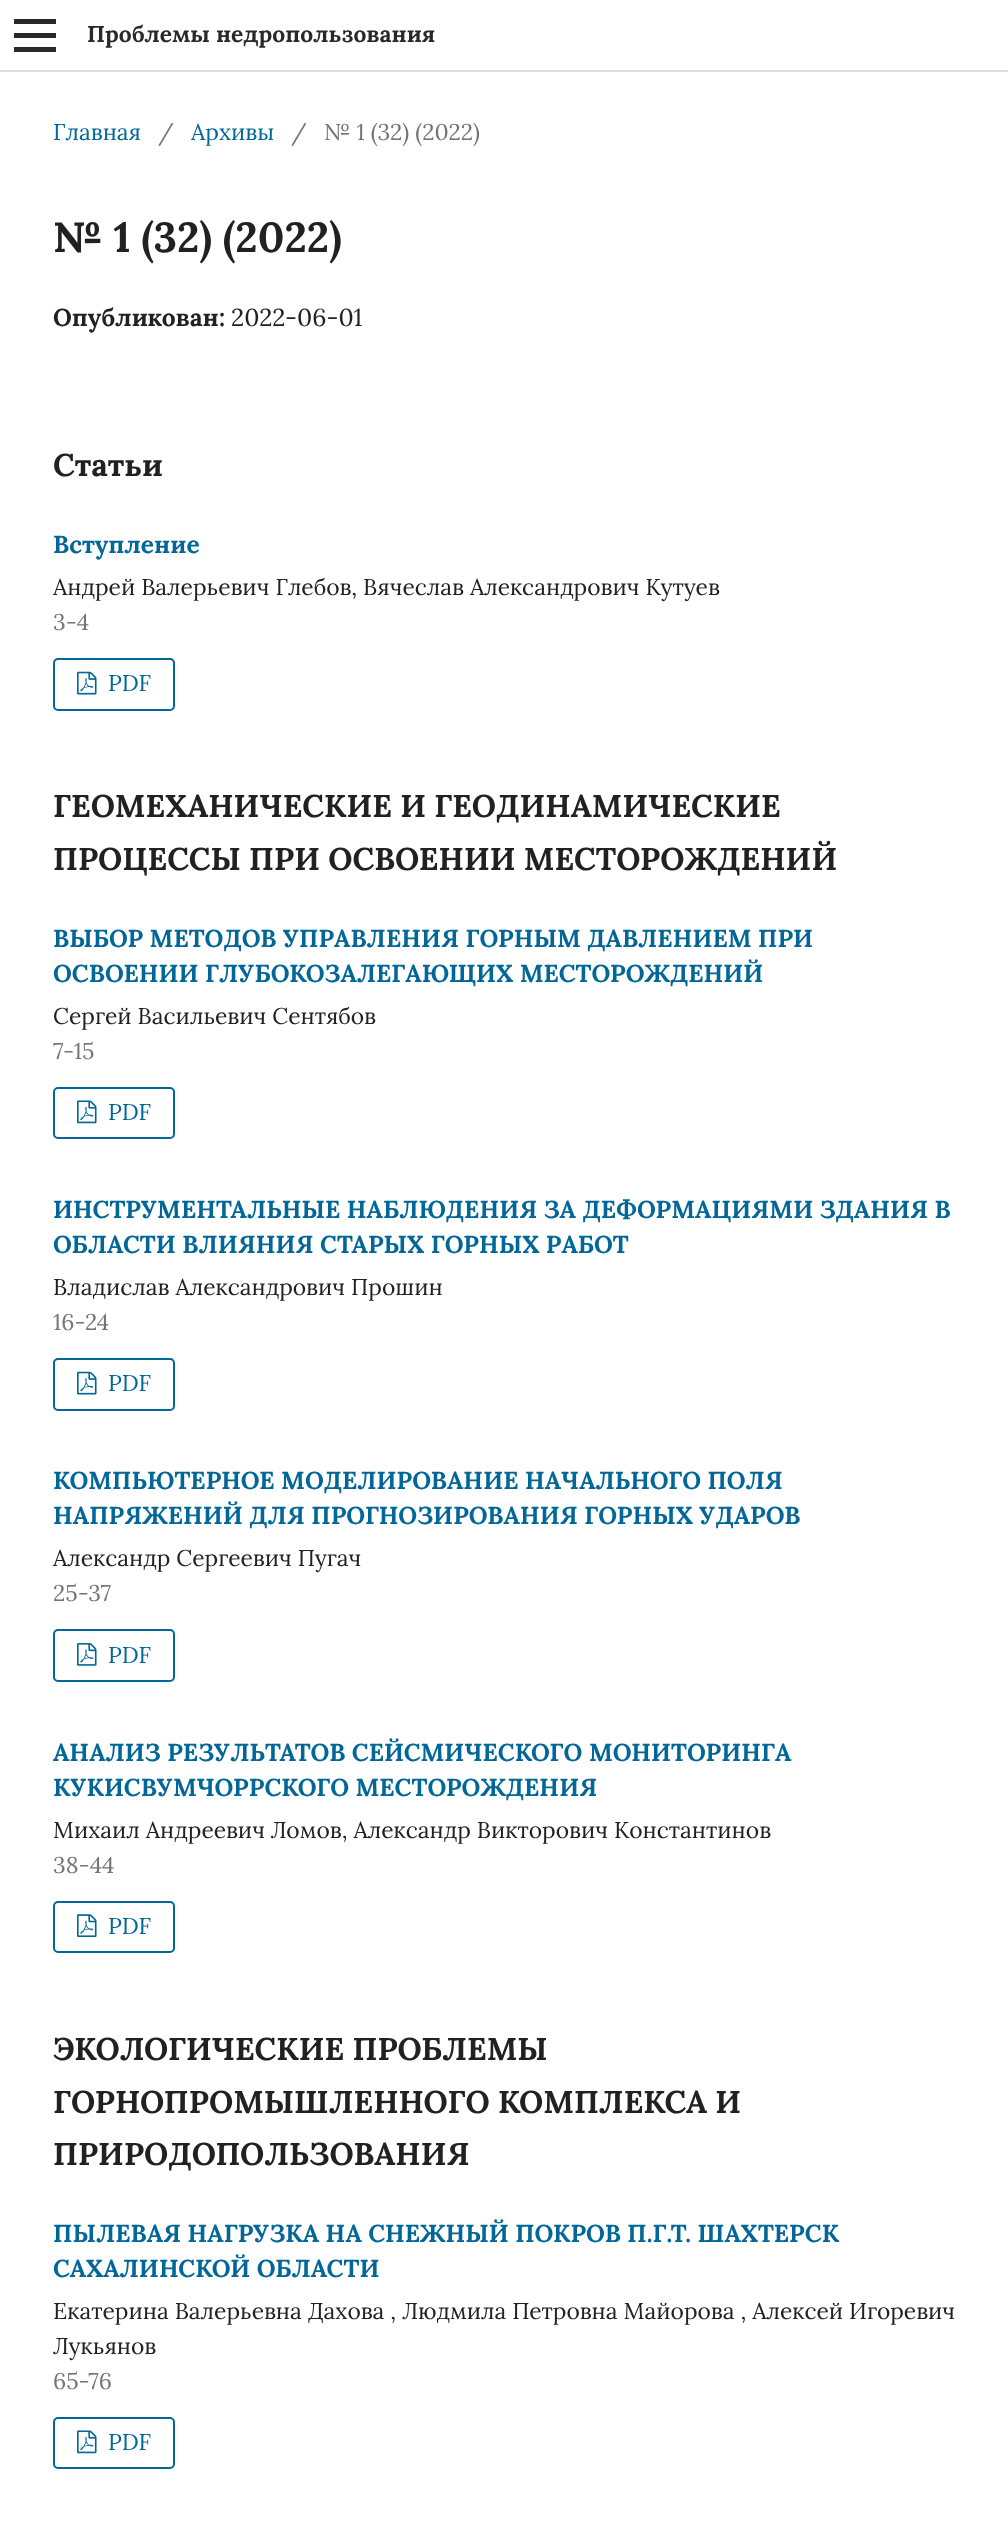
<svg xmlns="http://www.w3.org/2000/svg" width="1008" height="2522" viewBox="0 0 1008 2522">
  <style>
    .t1 { font: bold 22.8px Lora; fill: #292929; }
    .t2 { font: 22.8px Lora; fill: #006798; }
    .t3 { font: 22.8px Lora; fill: #757575; }
    .t4 { font: bold 42px Lora; fill: #212121; }
    .t5 { font: bold 24.5px Lora; fill: #212121; }
    .t6 { font: 24.5px Lora; fill: #212121; }
    .t7 { font: bold 31.5px Lora; fill: #212121; }
    .t8 { font: bold 24.5px Lora; fill: #006798; }
    .t9 { font: 22.8px Lora; fill: #212121; }
  </style>
  <rect width="100%" height="100%" fill="#fff"/>
  <rect x="0" y="70" width="1008" height="2" fill="#ddd"/>
  <rect x="14" y="47" width="42" height="5" fill="#292929"/>
  <rect x="14" y="19" width="42" height="5" fill="#292929"/>
  <rect x="14" y="33" width="42" height="5" fill="#292929"/>
  <text x="87" y="42" class="t1">Проблемы недропользования</text>
  <text x="53" y="140" class="t2">Главная</text>
  <text x="158" y="140" class="t3">/</text>
  <text x="191" y="140" class="t2">Архивы</text>
  <text x="291" y="140" class="t3">/</text>
  <text x="324" y="140" class="t3">№ 1 (32) (2022)</text>
  <text x="53" y="252" class="t4">№ 1 (32) (2022)</text>
  <text x="53" y="326" class="t5">Опубликован:</text>
  <text x="231" y="326" class="t6">2022-06-01</text>
  <text x="53" y="476" class="t7">Статьи</text>
  <text x="53" y="553" class="t8">Вступление</text>
  <text x="53" y="595" class="t9">Андрей Валерьевич Глебов, Вячеслав Александрович Кутуев</text>
  <text x="53" y="630" class="t3">3-4</text>
  <rect x="54" y="659" width="120" height="51" rx="4" fill="none" stroke="#006798" stroke-width="2"/>
  <image x="77" y="671" width="20" height="24" href="images/1.png"/>
  <text x="108" y="691" class="t2">PDF</text>
  <text x="53" y="817" class="t7">ГЕОМЕХАНИЧЕСКИЕ И ГЕОДИНАМИЧЕСКИЕ</text>
  <text x="53" y="870" class="t7">ПРОЦЕССЫ ПРИ ОСВОЕНИИ МЕСТОРОЖДЕНИЙ</text>
  <text x="53" y="947" class="t8">ВЫБОР МЕТОДОВ УПРАВЛЕНИЯ ГОРНЫМ ДАВЛЕНИЕМ ПРИ</text>
  <text x="53" y="982" class="t8">ОСВОЕНИИ ГЛУБОКОЗАЛЕГАЮЩИХ МЕСТОРОЖДЕНИЙ</text>
  <text x="53" y="1024" class="t9">Сергей Васильевич Сентябов</text>
  <text x="53" y="1059" class="t3">7-15</text>
  <rect x="54" y="1088" width="120" height="50" rx="4" fill="none" stroke="#006798" stroke-width="2"/>
  <image x="77" y="1100" width="20" height="24" href="images/2.png"/>
  <text x="108" y="1120" class="t2">PDF</text>
  <text x="53" y="1218" class="t8">ИНСТРУМЕНТАЛЬНЫЕ НАБЛЮДЕНИЯ ЗА ДЕФОРМАЦИЯМИ ЗДАНИЯ В</text>
  <text x="53" y="1253" class="t8">ОБЛАСТИ ВЛИЯНИЯ СТАРЫХ ГОРНЫХ РАБОТ</text>
  <text x="53" y="1295" class="t9">Владислав Александрович Прошин</text>
  <text x="53" y="1330" class="t3">16-24</text>
  <rect x="54" y="1359" width="120" height="51" rx="4" fill="none" stroke="#006798" stroke-width="2"/>
  <image x="77" y="1371" width="20" height="24" href="images/1.png"/>
  <text x="108" y="1391" class="t2">PDF</text>
  <text x="53" y="1489" class="t8">КОМПЬЮТЕРНОЕ МОДЕЛИРОВАНИЕ НАЧАЛЬНОГО ПОЛЯ</text>
  <text x="53" y="1524" class="t8">НАПРЯЖЕНИЙ ДЛЯ ПРОГНОЗИРОВАНИЯ ГОРНЫХ УДАРОВ</text>
  <text x="53" y="1566" class="t9">Александр Сергеевич Пугач</text>
  <text x="53" y="1601" class="t3">25-37</text>
  <rect x="54" y="1630" width="120" height="51" rx="4" fill="none" stroke="#006798" stroke-width="2"/>
  <image x="77" y="1643" width="20" height="23" href="images/3.png"/>
  <text x="108" y="1663" class="t2">PDF</text>
  <text x="53" y="1761" class="t8">АНАЛИЗ РЕЗУЛЬТАТОВ СЕЙСМИЧЕСКОГО МОНИТОРИНГА</text>
  <text x="53" y="1796" class="t8">КУКИСВУМЧОРРСКОГО МЕСТОРОЖДЕНИЯ</text>
  <text x="53" y="1838" class="t9">Михаил Андреевич Ломов, Александр Викторович Константинов</text>
  <text x="53" y="1873" class="t3">38-44</text>
  <rect x="54" y="1902" width="120" height="50" rx="4" fill="none" stroke="#006798" stroke-width="2"/>
  <image x="77" y="1914" width="20" height="23" href="images/4.png"/>
  <text x="108" y="1934" class="t2">PDF</text>
  <text x="53" y="2060" class="t7">ЭКОЛОГИЧЕСКИЕ ПРОБЛЕМЫ</text>
  <text x="53" y="2113" class="t7">ГОРНОПРОМЫШЛЕННОГО КОМПЛЕКСА И</text>
  <text x="53" y="2165" class="t7">ПРИРОДОПОЛЬЗОВАНИЯ</text>
  <text x="53" y="2242" class="t8">ПЫЛЕВАЯ НАГРУЗКА НА СНЕЖНЫЙ ПОКРОВ П.Г.Т. ШАХТЕРСК</text>
  <text x="53" y="2277" class="t8">САХАЛИНСКОЙ ОБЛАСТИ</text>
  <text x="53" y="2319" class="t9">Екатерина Валерьевна Дахова , Людмила Петровна Майорова , Алексей Игоревич</text>
  <text x="53" y="2354" class="t9">Лукьянов</text>
  <text x="53" y="2389" class="t3">65-76</text>
  <rect x="54" y="2418" width="120" height="50" rx="4" fill="none" stroke="#006798" stroke-width="2"/>
  <image x="77" y="2430" width="20" height="24" href="images/2.png"/>
  <text x="108" y="2450" class="t2">PDF</text>
</svg>
